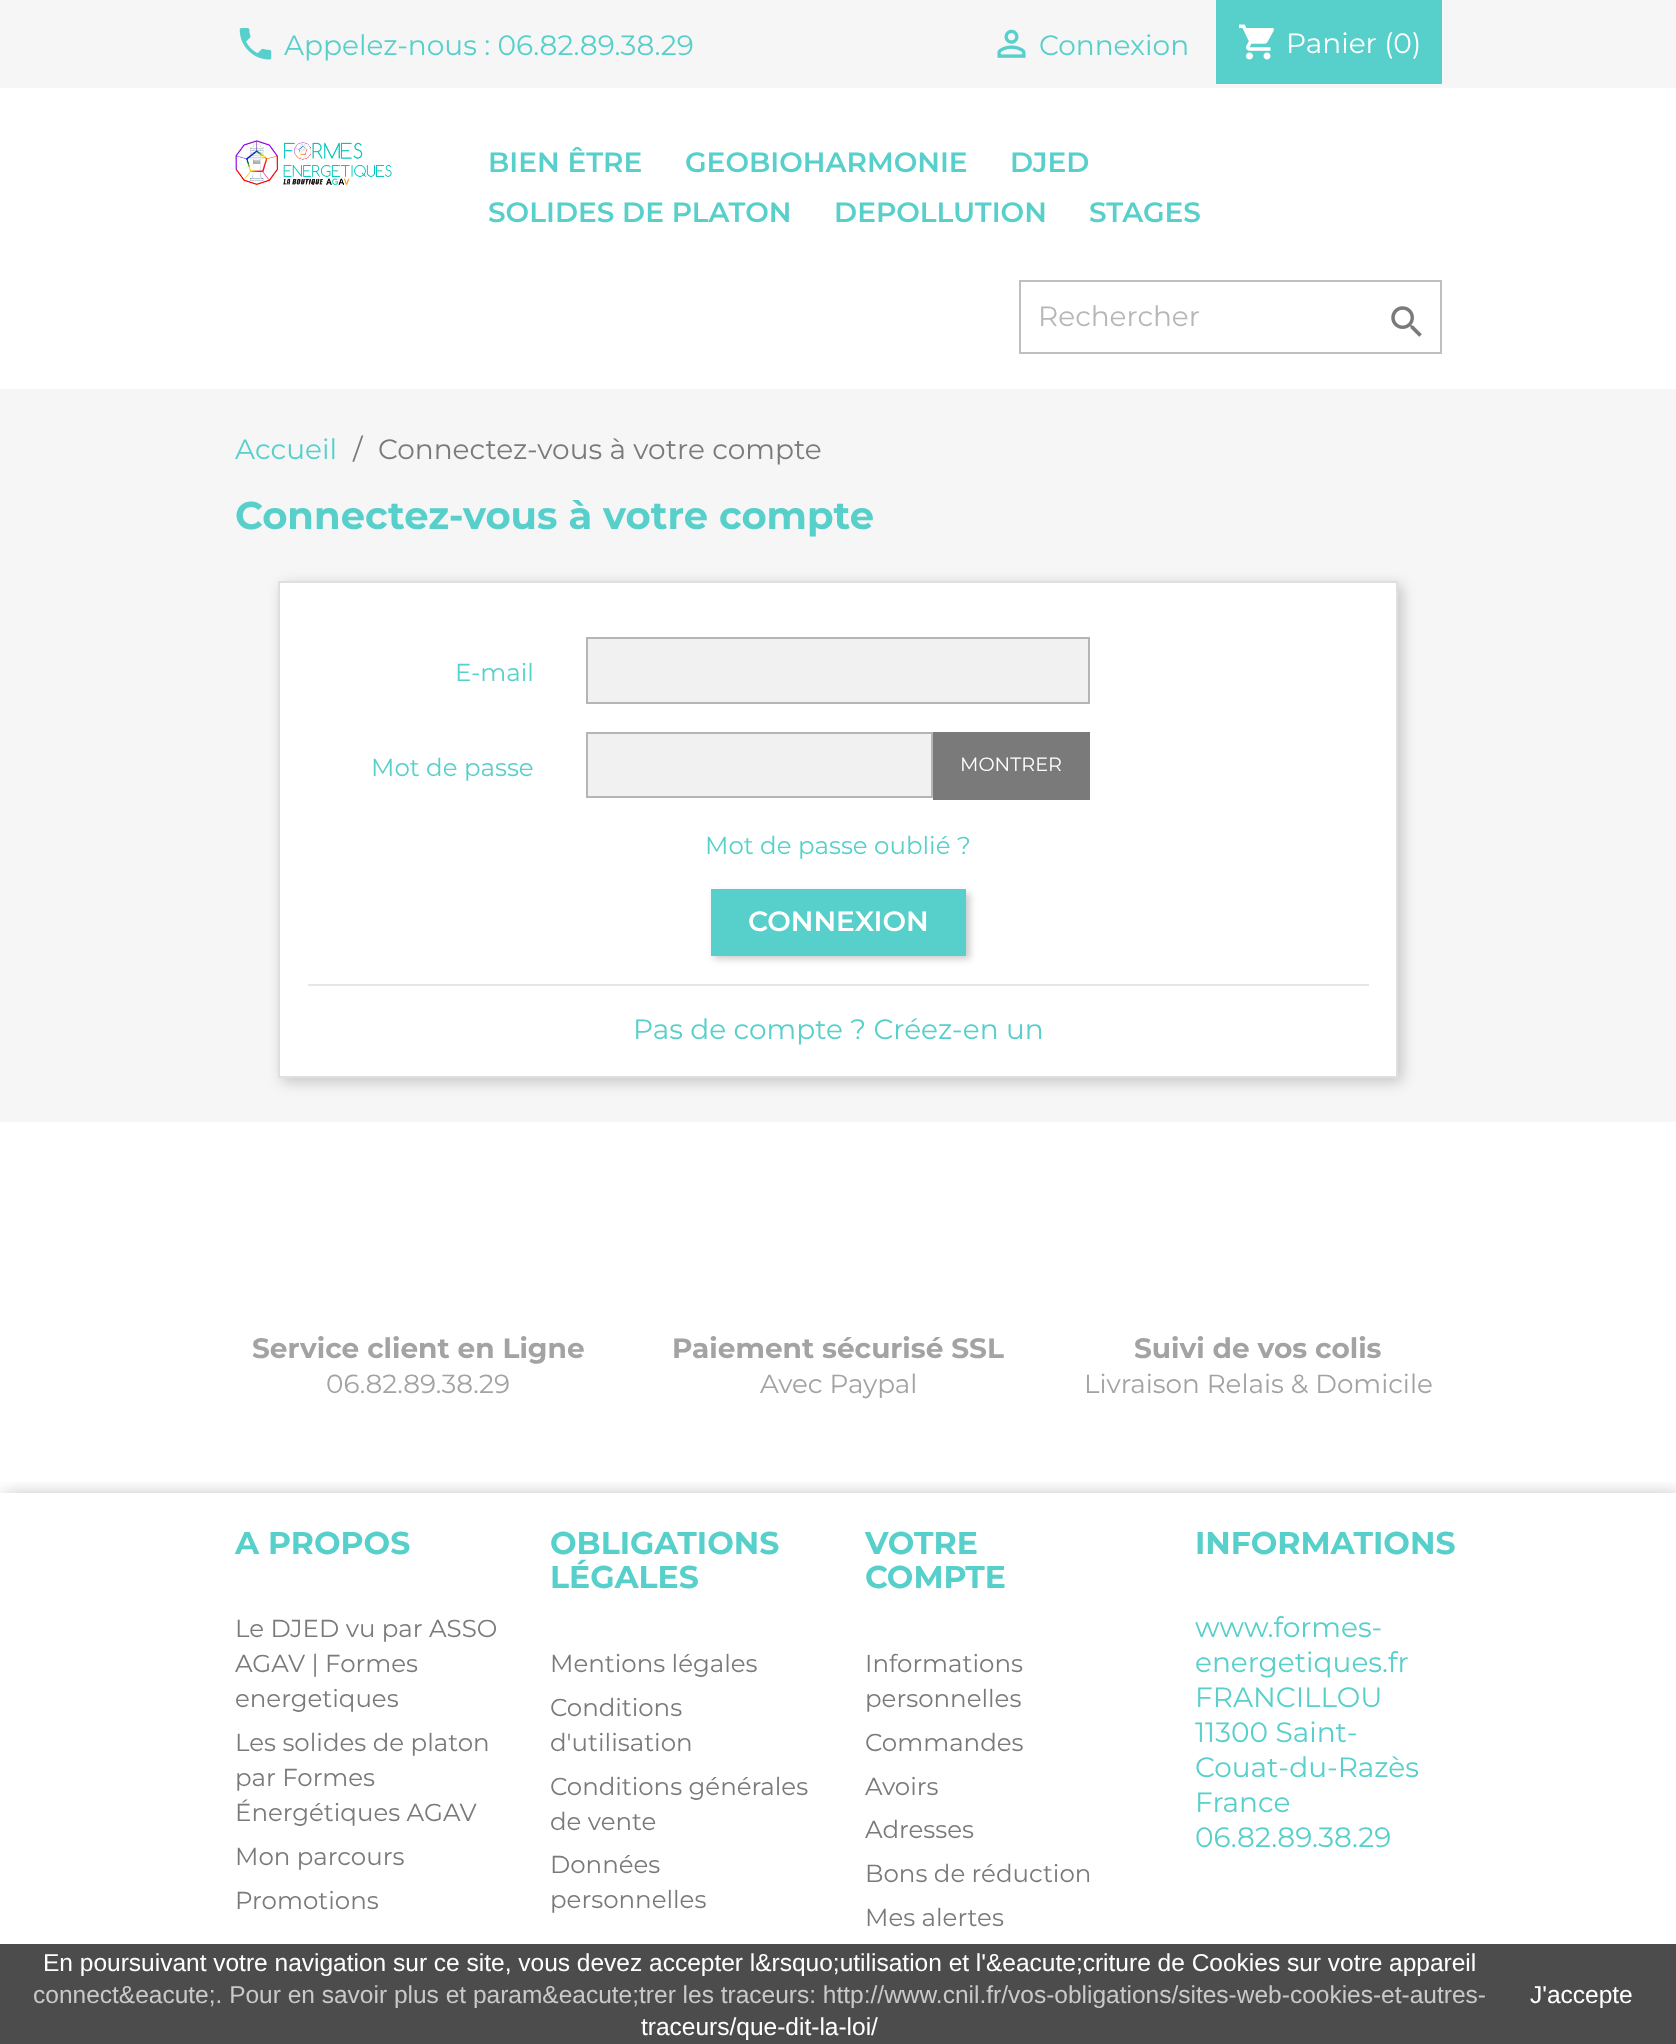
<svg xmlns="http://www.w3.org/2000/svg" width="1676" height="2044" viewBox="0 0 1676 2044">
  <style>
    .t1 { font: 28px Montserrat; fill: #57cfca; }
    .t2 { font: 28px Montserrat; fill: #fff; }
    .t3 { font: 600 28px Montserrat; fill: #57cfca; }
    .t4 { font: 28px Montserrat; fill: #b7b7b7; }
    .t5 { font: 28px Montserrat; fill: #7a7a7a; }
    .t6 { font: bold 38.5px Montserrat; fill: #57cfca; }
    .t7 { font: 24.5px Montserrat; fill: #57cfca; }
    .t8 { font: 19.25px Montserrat; fill: #fff; }
    .t9 { font: 600 28px Montserrat; fill: #fff; }
    .t10 { font: bold 28px Montserrat; fill: #a3a3a3; }
    .t11 { font: 26.25px Montserrat; fill: #a3a3a3; }
    .t12 { font: bold 31.5px Montserrat; fill: #57cfca; }
    .t13 { font: 24.5px Montserrat; fill: #7a7a7a; }
    .t14 { font: 24.5px Liberation Sans; fill: #fff; }
    .t15 { font: 24.5px Liberation Sans; fill: #c9c9c9; }
  </style>
  <defs>
    <clipPath id="clip1"><rect x="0" y="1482" width="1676" height="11"/></clipPath>
  </defs>
  <rect width="100%" height="100%" fill="#fff"/>
  <rect x="0" y="0" width="1676" height="88" fill="#f6f6f6"/>
  <image x="239" y="28" width="33" height="32" href="images/1.png"/>
  <text x="284" y="55" class="t1">Appelez-nous : 06.82.89.38.29</text>
  <image x="997" y="29" width="29" height="29" href="images/2.png"/>
  <text x="1039" y="55" class="t1">Connexion</text>
  <rect x="1216" y="0" width="226" height="84" fill="#57cfca"/>
  <image x="1238" y="24" width="36" height="36" href="images/3.png"/>
  <text x="1286" y="53" class="t2">Panier (0)</text>
  <image x="235" y="140" width="157" height="45" href="images/4.png"/>
  <text x="488" y="172" class="t3">BIEN ÊTRE</text>
  <text x="685" y="172" class="t3">GEOBIOHARMONIE</text>
  <text x="1010" y="172" class="t3">DJED</text>
  <text x="488" y="222" class="t3">SOLIDES DE PLATON</text>
  <text x="834" y="222" class="t3">DEPOLLUTION</text>
  <text x="1089" y="222" class="t3">STAGES</text>
  <rect x="1020" y="281" width="421" height="72" fill="none" stroke="#bfbfbf" stroke-width="2"/>
  <text x="1038" y="326" class="t4">Rechercher</text>
  <image x="1391" y="306" width="31" height="31" href="images/5.png"/>
  <rect x="0" y="389" width="1676" height="733" fill="#f6f6f6"/>
  <text x="235" y="459" class="t1">Accueil</text>
  <text x="353" y="459" class="t5">/</text>
  <text x="378" y="459" class="t5">Connectez-vous à votre compte</text>
  <text x="235" y="529" class="t6">Connectez-vous à votre compte</text>
  <rect x="282" y="585" width="1120" height="497" fill="#00000033" filter="blur(7px)"/>
  <rect x="279" y="582" width="1118" height="495" fill="#fff" stroke="#dfdfdf" stroke-width="2"/>
  <text x="455" y="681" class="t7">E-mail</text>
  <rect x="587" y="638" width="502" height="65" fill="#f1f1f1" stroke="#b5b5b5" stroke-width="2"/>
  <text x="371" y="776" class="t7">Mot de passe</text>
  <rect x="587" y="733" width="345" height="64" fill="#f1f1f1" stroke="#b5b5b5" stroke-width="2"/>
  <rect x="933" y="732" width="157" height="68" fill="#7a7a7a"/>
  <text x="960" y="771" class="t8">MONTRER</text>
  <text x="705" y="854" class="t7">Mot de passe oublié ?</text>
  <rect x="714" y="893" width="256" height="66" fill="#00000033" filter="blur(3.5px)"/>
  <rect x="711" y="889" width="255" height="67" fill="#57cfca"/>
  <text x="748" y="931" class="t9">CONNEXION</text>
  <rect x="308" y="984" width="1061" height="2" fill="#e6e6e6"/>
  <text x="633" y="1039" class="t1">Pas de compte ? Créez-en un</text>
  <text x="252" y="1358" class="t10">Service client en Ligne</text>
  <text x="326" y="1393" class="t11">06.82.89.38.29</text>
  <text x="672" y="1358" class="t10">Paiement sécurisé SSL</text>
  <text x="760" y="1393" class="t11">Avec Paypal</text>
  <text x="1134" y="1358" class="t10">Suivi de vos colis</text>
  <text x="1084" y="1393" class="t11">Livraison Relais &amp; Domicile</text>
  <g clip-path="url(#clip1)">
    <rect x="4" y="1496" width="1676" height="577" fill="#0000004d" filter="blur(9.5px)"/>
  </g>
  <text x="235" y="1554" class="t12">A PROPOS</text>
  <text x="235" y="1637" class="t13">Le DJED vu par ASSO</text>
  <text x="235" y="1672" class="t13">AGAV | Formes</text>
  <text x="235" y="1707" class="t13">energetiques</text>
  <text x="235" y="1751" class="t13">Les solides de platon</text>
  <text x="235" y="1786" class="t13">par Formes</text>
  <text x="235" y="1821" class="t13">Énergétiques AGAV</text>
  <text x="235" y="1865" class="t13">Mon parcours</text>
  <text x="235" y="1909" class="t13">Promotions</text>
  <text x="550" y="1554" class="t12">OBLIGATIONS</text>
  <text x="550" y="1588" class="t12">LÉGALES</text>
  <text x="550" y="1672" class="t13">Mentions légales</text>
  <text x="550" y="1716" class="t13">Conditions</text>
  <text x="550" y="1751" class="t13">d'utilisation</text>
  <text x="550" y="1795" class="t13">Conditions générales</text>
  <text x="550" y="1830" class="t13">de vente</text>
  <text x="550" y="1873" class="t13">Données</text>
  <text x="550" y="1908" class="t13">personnelles</text>
  <text x="865" y="1554" class="t12">VOTRE</text>
  <text x="865" y="1588" class="t12">COMPTE</text>
  <text x="865" y="1672" class="t13">Informations</text>
  <text x="865" y="1707" class="t13">personnelles</text>
  <text x="865" y="1751" class="t13">Commandes</text>
  <text x="865" y="1795" class="t13">Avoirs</text>
  <text x="865" y="1838" class="t13">Adresses</text>
  <text x="865" y="1882" class="t13">Bons de réduction</text>
  <text x="865" y="1926" class="t13">Mes alertes</text>
  <text x="1195" y="1554" class="t12">INFORMATIONS</text>
  <text x="1195" y="1637" class="t1">www.formes-</text>
  <text x="1195" y="1672" class="t1">energetiques.fr</text>
  <text x="1195" y="1707" class="t1">FRANCILLOU</text>
  <text x="1195" y="1742" class="t1">11300 Saint-</text>
  <text x="1195" y="1777" class="t1">Couat-du-Razès</text>
  <text x="1195" y="1812" class="t1">France</text>
  <text x="1195" y="1847" class="t1">06.82.89.38.29</text>
  <rect x="0" y="1944" width="1676" height="100" fill="#000000b3"/>
  <text x="43" y="1971" class="t14">En poursuivant votre navigation sur ce site, vous devez accepter l&amp;rsquo;utilisation et l'&amp;eacute;criture de Cookies sur votre appareil</text>
  <text x="33" y="2003" class="t15">connect&amp;eacute;. Pour en savoir plus et param&amp;eacute;trer les traceurs: http://www.cnil.fr/vos-obligations/sites-web-cookies-et-autres-</text>
  <text x="641" y="2035" class="t14">traceurs/que-dit-la-loi/</text>
  <text x="1530" y="2003" class="t14">J'accepte</text>
</svg>
